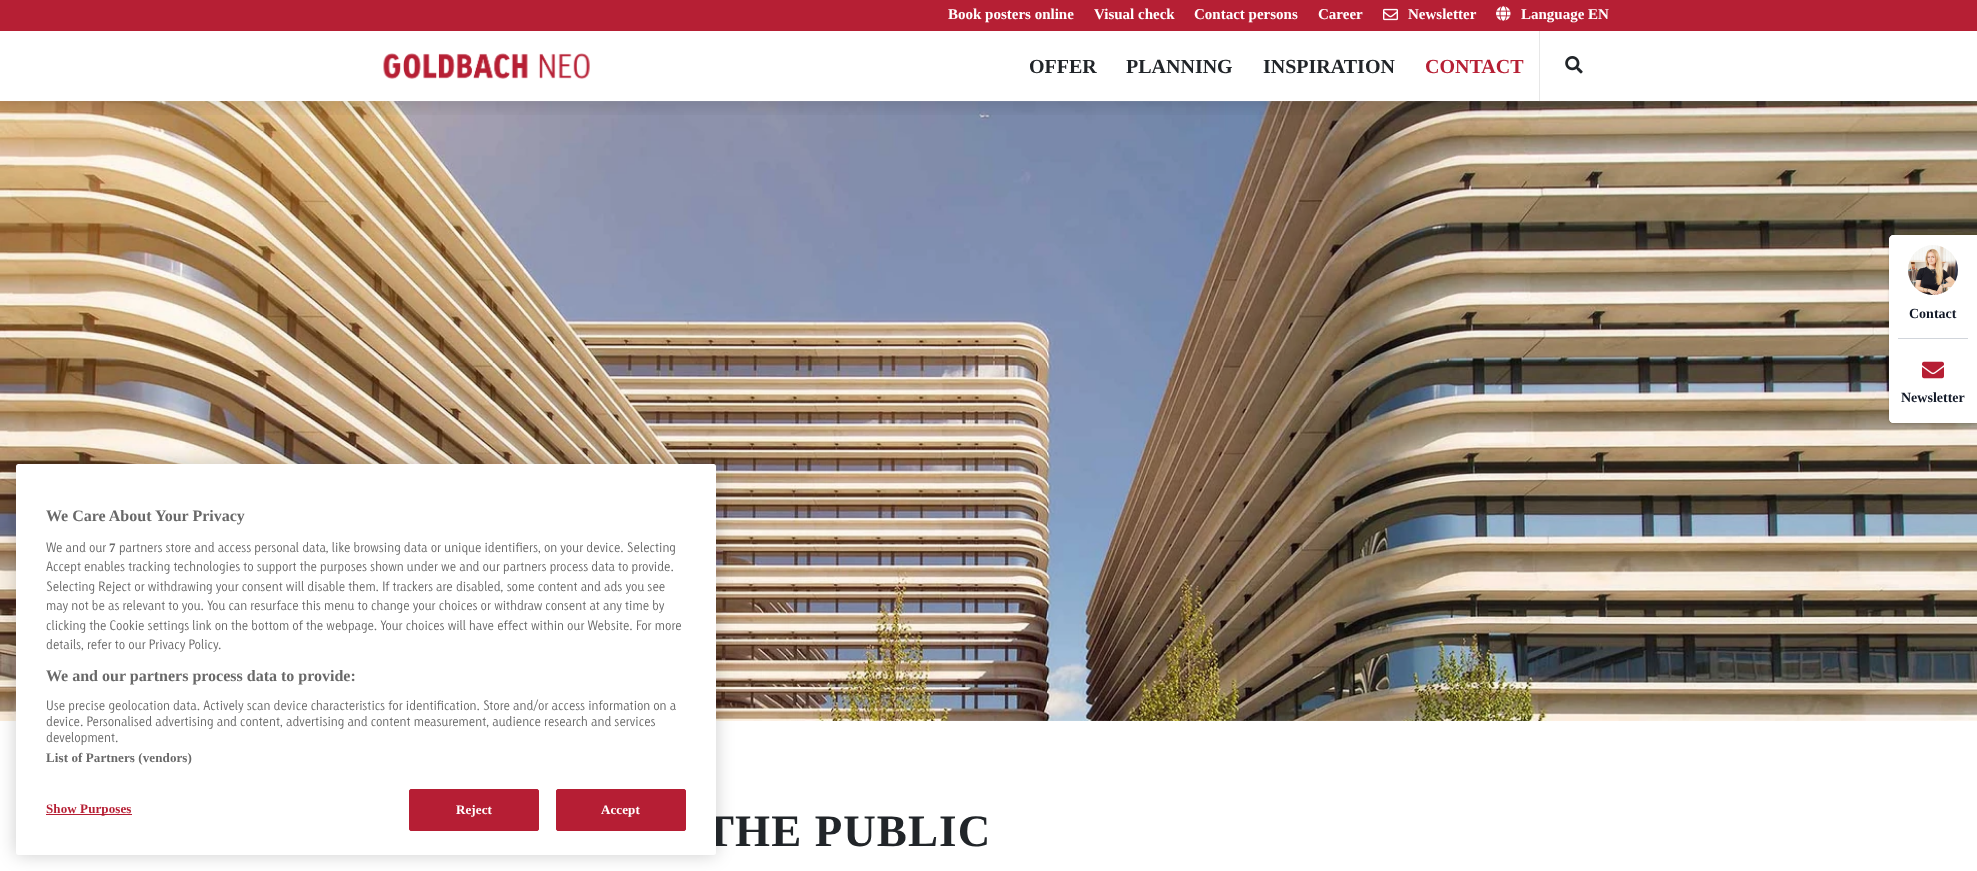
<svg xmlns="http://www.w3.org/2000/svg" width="1977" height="871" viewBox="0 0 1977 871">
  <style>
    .t1 { font: bold 45px Liberation Serif; letter-spacing: 1.1px; fill: #212529; }
    .t2 { font: bold 16px Liberation Serif; fill: #696969; }
    .t3 { font: 300 13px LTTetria; fill: #696969; }
    .t4 { font: bold 13px Liberation Serif; fill: #696969; }
    .t5 { font: bold 13px Liberation Serif; letter-spacing: 0.1px; fill: #696969; }
    .t6 { font: bold 13px Liberation Serif; letter-spacing: 0.1px; fill: #b61f34; }
    .t7 { font: bold 13px Liberation Serif; letter-spacing: 0.1px; fill: #fff; }
    .t8 { font: bold 15px Liberation Serif; fill: #fff; }
    .t9 { font: bold 20px Liberation Serif; fill: #212529; }
    .t10 { font: bold 20px Liberation Serif; fill: #b61f34; }
    .t11 { font: bold 14px Liberation Serif; fill: #111827; }
  </style>
  <defs>
    <clipPath id="clip1"><rect x="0" y="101" width="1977" height="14"/></clipPath>
  </defs>
  <rect width="100%" height="100%" fill="#fff"/>
  <image x="0" y="101" width="1977" height="620" href="images/7.png"/>
  <rect x="16" y="464" width="700" height="391" rx="2.5" fill="#00000033" filter="blur(9px)"/>
  <text x="704" y="846" class="t1">THE PUBLIC</text>
  <rect x="16" y="464" width="700" height="391" rx="2.5" fill="#fff"/>
  <text x="46" y="521" class="t2">We Care About Your Privacy</text>
  <text x="46" y="552" class="t3">We and our</text>
  <text x="109" y="552" class="t4">7</text>
  <text x="119" y="552" class="t3">partners store and access personal data, like browsing data or unique identifiers, on your device. Selecting</text>
  <text x="46" y="571" class="t3">Accept enables tracking technologies to support the purposes shown under we and our partners process data to provide.</text>
  <text x="46" y="591" class="t3">Selecting Reject or withdrawing your consent will disable them. If trackers are disabled, some content and ads you see</text>
  <text x="46" y="610" class="t3">may not be as relevant to you. You can resurface this menu to change your choices or withdraw consent at any time by</text>
  <text x="46" y="630" class="t3">clicking the Cookie settings link on the bottom of the webpage. Your choices will have effect within our Website. For more</text>
  <text x="46" y="649" class="t3">details, refer to our Privacy Policy.</text>
  <text x="46" y="681" class="t2">We and our partners process data to provide:</text>
  <text x="46" y="710" class="t3">Use precise geolocation data. Actively scan device characteristics for identification. Store and/or access information on a</text>
  <text x="46" y="726" class="t3">device. Personalised advertising and content, advertising and content measurement, audience research and services</text>
  <text x="46" y="742" class="t3">development.</text>
  <text x="46" y="762" class="t5">List of Partners (vendors)</text>
  <rect x="46" y="814" width="86" height="1" fill="#b61e34"/>
  <text x="46" y="813" class="t6">Show Purposes</text>
  <rect x="409.5" y="789.5" width="129" height="41" rx="1.5" fill="#b61e34" stroke="#b61e34"/>
  <text x="456" y="814" class="t7">Reject</text>
  <rect x="556.5" y="789.5" width="129" height="41" rx="1.5" fill="#b61e34" stroke="#b61e34"/>
  <text x="601" y="814" class="t7">Accept</text>
  <g clip-path="url(#clip1)">
    <rect x="0" y="34" width="1977" height="70" fill="#00000029" filter="blur(10px)"/>
  </g>
  <rect x="0" y="0" width="1977" height="31" fill="#b61f34"/>
  <text x="948" y="19" class="t8">Book posters online</text>
  <text x="1094" y="19" class="t8">Visual check</text>
  <text x="1194" y="19" class="t8">Contact persons</text>
  <text x="1318" y="19" class="t8">Career</text>
  <image x="1383" y="8" width="15" height="13" href="images/1.png"/>
  <text x="1408" y="19" class="t8">Newsletter</text>
  <image x="1496" y="6" width="15" height="15" href="images/2.png"/>
  <text x="1521" y="19" class="t8">Language EN</text>
  <image x="383" y="53" width="207" height="26" href="images/3.png"/>
  <text x="1029" y="73" class="t9">OFFER</text>
  <text x="1126" y="73" class="t9">PLANNING</text>
  <text x="1263" y="73" class="t9">INSPIRATION</text>
  <text x="1425" y="73" class="t10">CONTACT</text>
  <rect x="1539" y="31" width="1" height="70" fill="#e7e7e7"/>
  <image x="1565" y="56" width="18" height="18" href="images/4.png"/>
  <rect x="1889" y="236" width="88" height="188" rx="5" fill="#0000000f" filter="blur(1px)"/>
  <rect x="1889" y="236" width="88" height="188" rx="5" fill="#0000001a" filter="blur(1.5px)"/>
  <path d="M1894 235H1977V423H1894C1891 423 1889 421 1889 418V240C1889 237 1891 235 1894 235Z" fill="#fff"/>
  <path d="M1894 235H1977V335H1889V240C1889 237 1891 235 1894 235Z" fill="#fff"/>
  <image x="1908" y="245" width="50" height="50" href="images/5.png"/>
  <text x="1909" y="318" class="t11">Contact</text>
  <rect x="1898" y="338" width="70" height="1" fill="#d1d5db"/>
  <path d="M1889 342H1977V423H1894C1891 423 1889 421 1889 418Z" fill="#fff"/>
  <image x="1922" y="361" width="22" height="18" href="images/6.png"/>
  <text x="1901" y="402" class="t11">Newsletter</text>
</svg>
